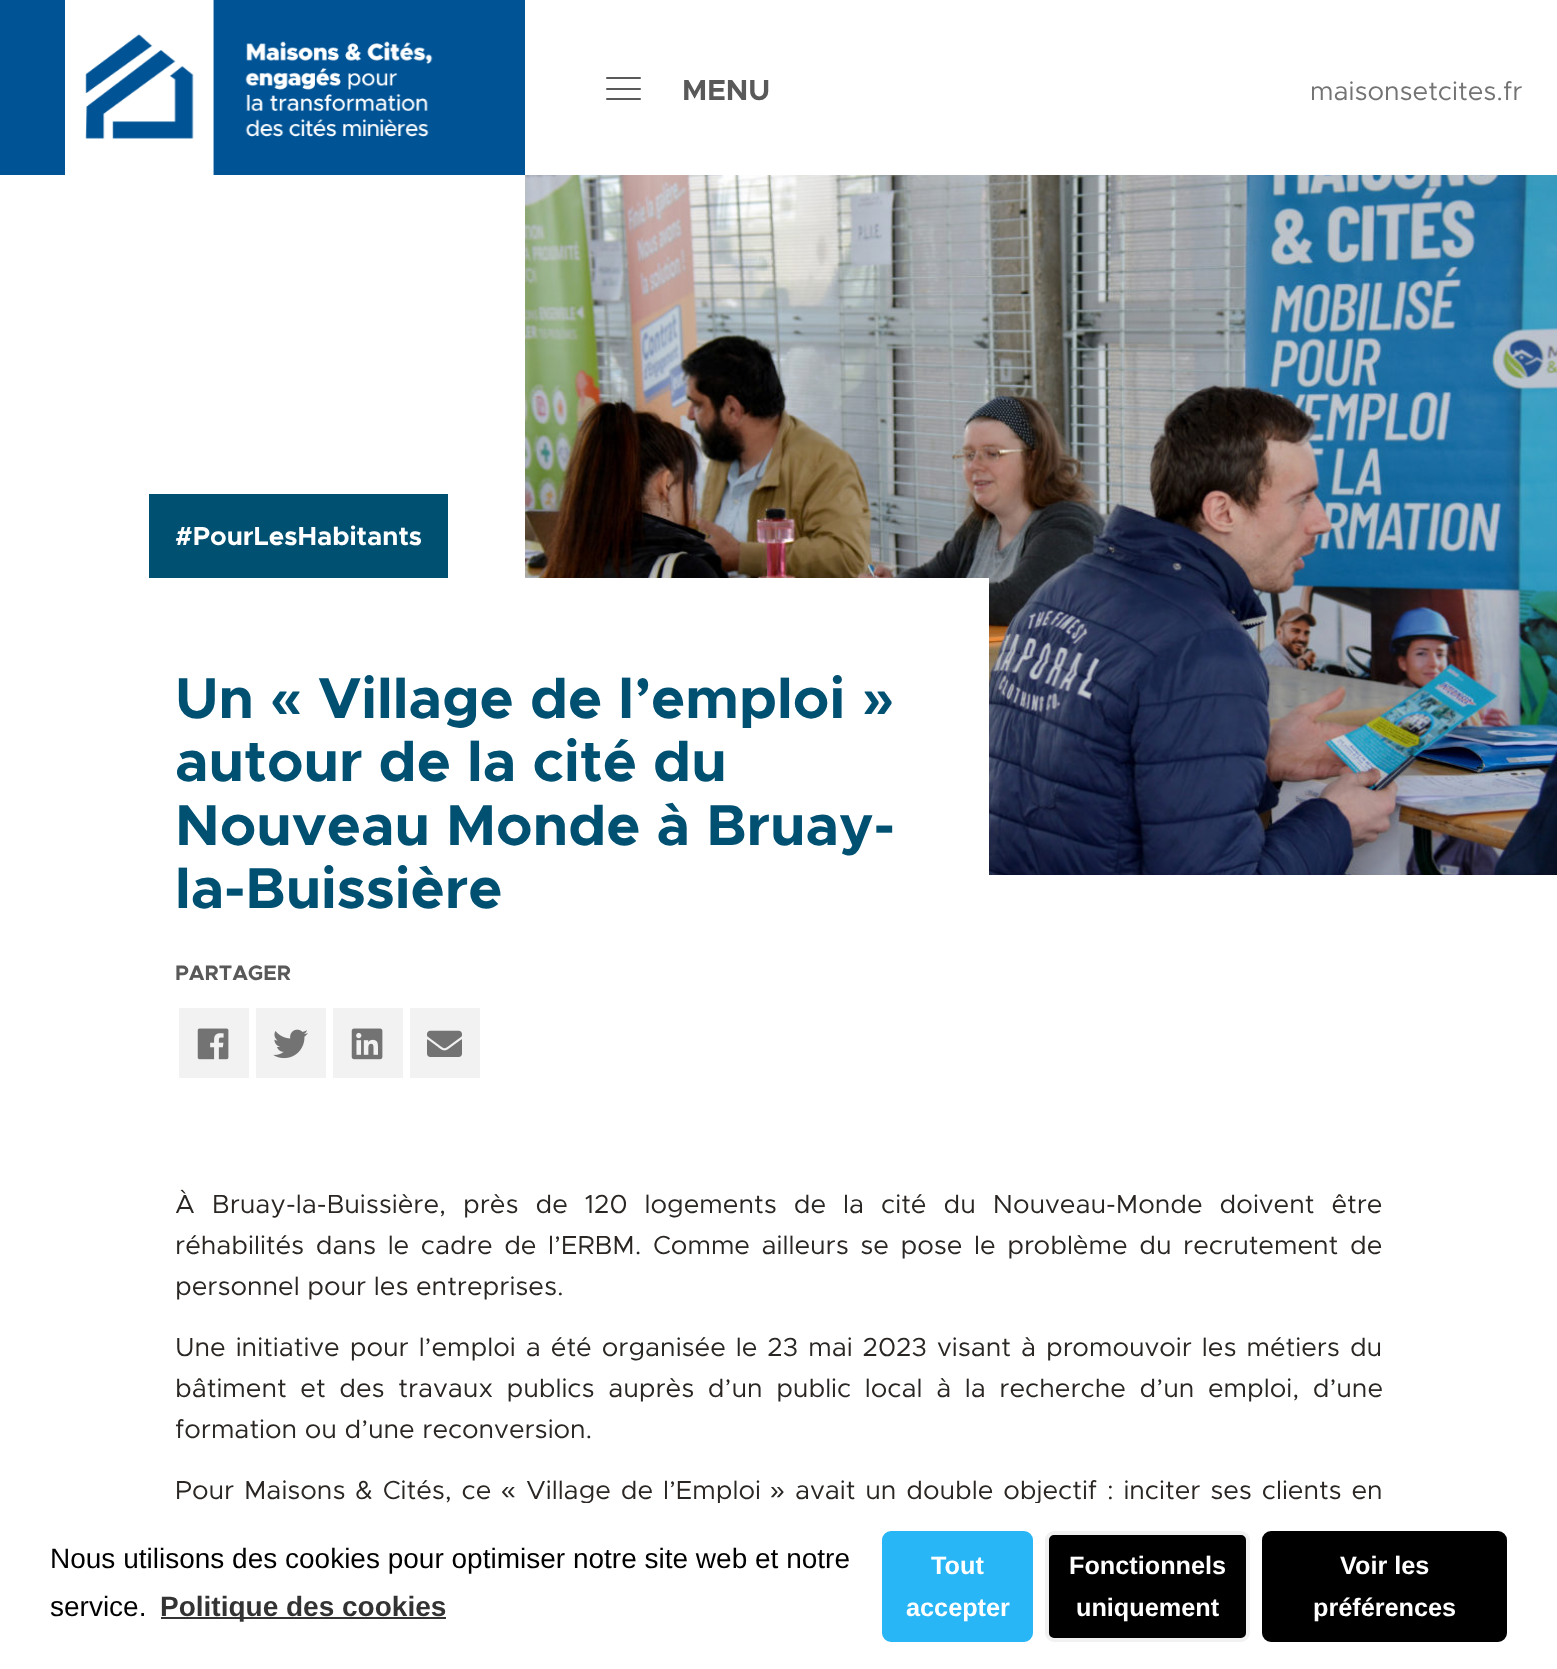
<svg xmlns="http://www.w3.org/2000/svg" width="1557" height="1669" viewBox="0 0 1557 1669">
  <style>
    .t1 { font: bold 29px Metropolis; fill: #595959; }
    .t2 { font: 26.25px Metropolis; fill: #737373; }
    .t3 { font: bold 26.25px Metropolis; fill: #fff; }
    .t4 { font: bold 57.75px Metropolis; fill: #005072; }
    .t5 { font: bold 57.75px Liberation Sans; fill: #005072; }
    .t6 { font: bold 21px Metropolis; fill: #595959; }
    .t7 { font: 26.25px Metropolis; fill: #2a2623; }
    .t8 { font: 26.25px Liberation Sans; fill: #2a2623; }
    .t9 { font: 28px Liberation Sans; fill: #000; }
    .t10 { font: bold 28px Liberation Sans; fill: #333; }
    .t11 { font: bold 25.25px Liberation Sans; fill: #fff; }
  </style>
  <rect width="100%" height="100%" fill="#fff"/>
  <rect x="0" y="0" width="525" height="175" fill="#005496"/>
  <image x="65" y="0" width="368" height="175" href="images/1.png"/>
  <rect x="606" y="77" width="35" height="2" rx="1" fill="#595959"/>
  <rect x="606" y="88" width="35" height="2" rx="1" fill="#595959"/>
  <rect x="606" y="98" width="35" height="2" rx="1" fill="#595959"/>
  <text x="682" y="100" class="t1">MENU</text>
  <text x="1310" y="100" class="t2">maisonsetcites.fr</text>
  <image x="525" y="175" width="1032" height="700" href="images/2.png"/>
  <rect x="525" y="578" width="464" height="297" fill="#fff"/>
  <rect x="149" y="494" width="299" height="84" fill="#005072"/>
  <text x="175" y="545" class="t3">#PourLesHabitants</text>
  <text x="175" y="718" class="t4">Un</text>
  <text x="270" y="718" class="t5">«</text>
  <text x="318" y="718" class="t4">Village de l’emploi</text>
  <text x="862" y="718" class="t5">»</text>
  <text x="175" y="781" class="t4">autour de la cité du</text>
  <text x="175" y="845" class="t4">Nouveau Monde à Bruay-</text>
  <text x="175" y="908" class="t4">la-Buissière</text>
  <text x="175" y="980" class="t6">PARTAGER</text>
  <rect x="179" y="1008" width="70" height="70" fill="#f2f2f2"/>
  <image x="197" y="1028" width="32" height="32" href="images/3.png"/>
  <rect x="256" y="1008" width="70" height="70" fill="#f2f2f2"/>
  <image x="273" y="1029" width="35" height="30" href="images/4.png"/>
  <rect x="333" y="1008" width="70" height="70" fill="#f2f2f2"/>
  <image x="351" y="1028" width="32" height="32" href="images/5.png"/>
  <rect x="410" y="1008" width="70" height="70" fill="#f2f2f2"/>
  <image x="427" y="1030" width="35" height="27" href="images/6.png"/>
  <text x="175" y="1213" word-spacing="9.4" class="t7">À Bruay-la-Buissière, près de 120 logements de la cité du Nouveau-Monde doivent être</text>
  <text x="175" y="1254" word-spacing="4" class="t7">réhabilités dans le cadre de l’ERBM. Comme ailleurs se pose le problème du recrutement de</text>
  <text x="175" y="1295" class="t7">personnel pour les entreprises.</text>
  <text x="175" y="1356" word-spacing="2.4" class="t7">Une initiative pour l’emploi a été organisée le 23 mai 2023 visant à promouvoir les métiers du</text>
  <text x="175" y="1397" word-spacing="6" class="t7">bâtiment et des travaux publics auprès d’un public local à la recherche d’un emploi, d’une</text>
  <text x="175" y="1438" class="t7">formation ou d’une reconversion.</text>
  <text x="175" y="1499" word-spacing="2.25" class="t7">Pour Maisons &amp; Cités, ce</text>
  <text x="501" y="1499" class="t8">«</text>
  <text x="526" y="1499" word-spacing="2.25" class="t7">Village de l’Emploi</text>
  <text x="770" y="1499" class="t8">»</text>
  <text x="795" y="1499" word-spacing="2.25" class="t7">avait un double objectif : inciter ses clients en</text>
  <rect x="583" y="1503" width="456" height="1" fill="#fff"/>
  <text x="50" y="1568" class="t9">Nous utilisons des cookies pour optimiser notre site web et notre</text>
  <text x="50" y="1616" class="t9">service.</text>
  <rect x="161" y="1617" width="285" height="2" fill="#333"/>
  <text x="160" y="1616" class="t10">Politique des cookies</text>
  <rect x="884" y="1533" width="147" height="107" rx="7" fill="#29b6f6" stroke="#29b6f6" stroke-width="4"/>
  <text x="931" y="1574" class="t11">Tout</text>
  <text x="906" y="1616" class="t11">accepter</text>
  <rect x="1047" y="1533" width="201" height="107" rx="7" fill="#000" stroke="#f1f1f1" stroke-width="4"/>
  <text x="1069" y="1574" class="t11">Fonctionnels</text>
  <text x="1076" y="1616" class="t11">uniquement</text>
  <rect x="1264" y="1533" width="241" height="107" rx="7" fill="#000" stroke="#000" stroke-width="4"/>
  <text x="1340" y="1574" class="t11">Voir les</text>
  <text x="1313" y="1616" class="t11">préférences</text>
</svg>
